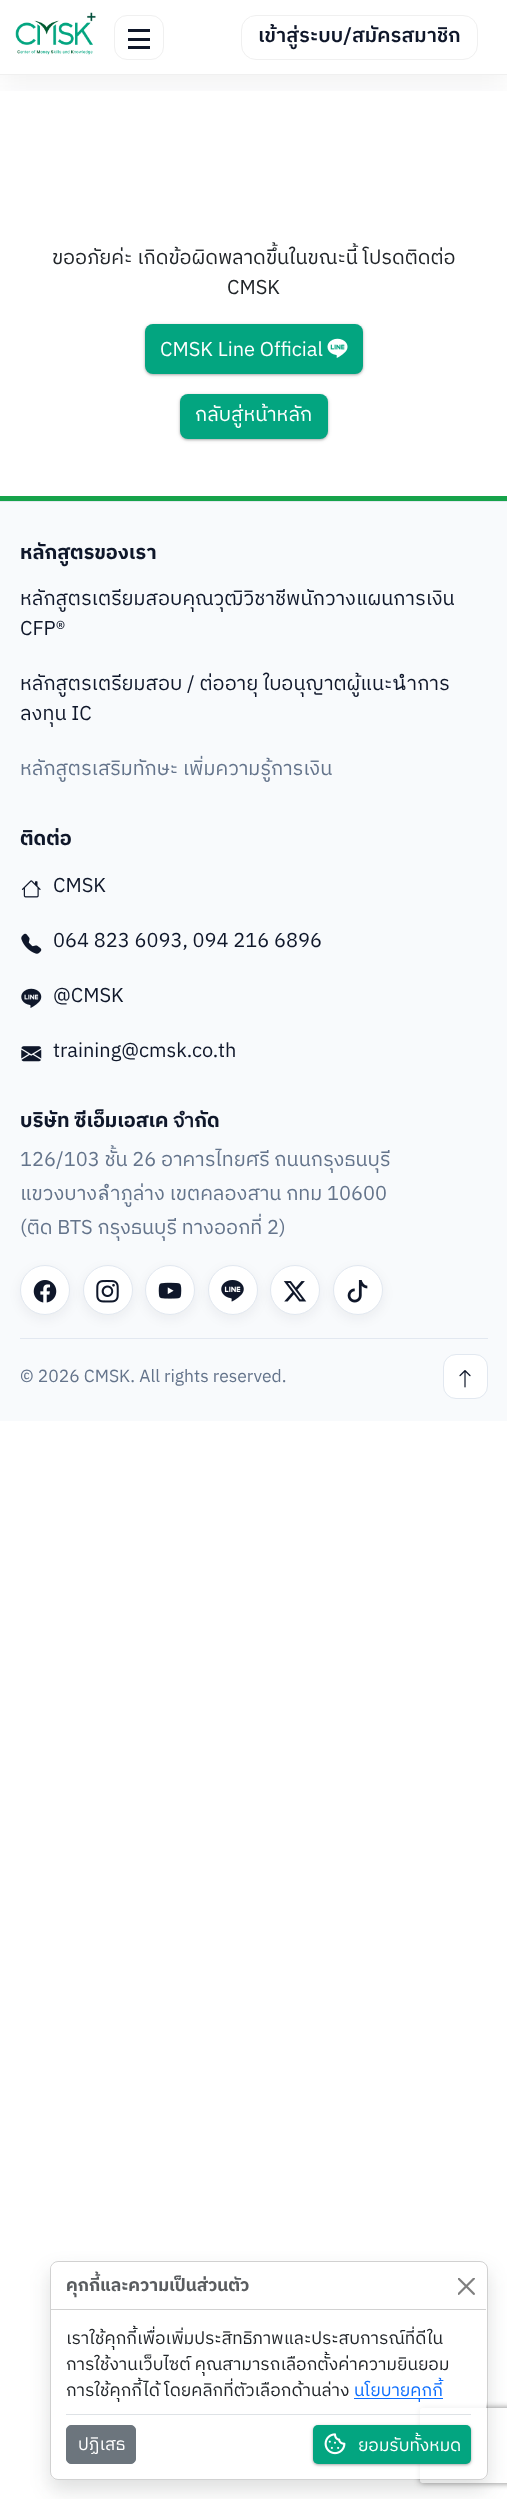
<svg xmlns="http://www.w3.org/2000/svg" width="507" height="2499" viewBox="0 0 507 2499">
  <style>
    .t1 { font: 600 20px IBM Plex Sans Thai; letter-spacing: 0.1px; fill: #0f172a; }
    .t2 { font: 20px IBM Plex Sans Thai; fill: #212529; }
    .t3 { font: 20px IBM Plex Sans Thai; fill: #fff; }
    .t4 { font: bold 20px IBM Plex Sans Thai; fill: #0f172a; }
    .t5 { font: 20px IBM Plex Sans Thai; fill: #0f172a; }
    .t6 { font: 20px IBM Plex Sans Thai; fill: #64748b; }
    .t7 { font: 17.5px IBM Plex Sans Thai; fill: #64748b; }
    .t8 { font: bold 17.5px IBM Plex Sans Thai; fill: #595c5f; }
    .t9 { font: 17.5px IBM Plex Sans Thai; fill: #212529; }
    .t10 { font: 17.5px IBM Plex Sans Thai; fill: #0d6efd; }
    .t11 { font: 17.5px IBM Plex Sans Thai; fill: #fff; }
  </style>
  <defs>
    <clipPath id="clip1"><rect x="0" y="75" width="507" height="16"/></clipPath>
    <clipPath id="clip2"><path d="M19 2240H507V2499H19ZM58 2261H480C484.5 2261 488 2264.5 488 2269V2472C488 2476.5 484.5 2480 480 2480H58C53.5 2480 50 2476.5 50 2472V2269C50 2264.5 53.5 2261 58 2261Z" clip-rule="evenodd"/></clipPath>
    <clipPath id="clip3"><path d="M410 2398H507V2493H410ZM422.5 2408H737.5C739 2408 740 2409 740 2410.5V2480.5C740 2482 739 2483 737.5 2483H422.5C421 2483 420 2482 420 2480.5V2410.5C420 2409 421 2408 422.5 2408Z" clip-rule="evenodd"/></clipPath>
  </defs>
  <rect width="100%" height="100%" fill="#fff"/>
  <g clip-path="url(#clip1)">
    <rect x="0" y="10" width="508" height="75" fill="#0f172a0f" filter="blur(15px)"/>
  </g>
  <rect x="0" y="74" width="507" height="1" fill="#f0f0f0"/>
  <image x="15" y="12" width="81" height="43" href="images/1.png"/>
  <rect x="114.5" y="15.5" width="49" height="44" rx="12.5" fill="none" stroke="#f0f0f0"/>
  <rect x="128" y="29" width="22" height="3" fill="#0f172a"/>
  <rect x="128" y="38" width="22" height="3" fill="#0f172a"/>
  <rect x="128" y="46" width="22" height="3" fill="#0f172a"/>
  <rect x="241.5" y="15.5" width="236" height="44" rx="14.5" fill="none" stroke="#f0f0f0"/>
  <text x="258" y="42" class="t1">เข้าสู่ระบบ/สมัครสมาชิก</text>
  <text x="52" y="264" class="t2">ขออภัยค่ะ เกิดข้อผิดพลาดขึ้นในขณะนี้ โปรดติดต่อ</text>
  <text x="227" y="294" class="t2">CMSK</text>
  <rect x="145" y="325" width="218" height="50" rx="8" fill="#0000003d" filter="blur(1px)"/>
  <rect x="145" y="325" width="218" height="50" rx="8" fill="#0000001f" filter="blur(2px)"/>
  <rect x="145" y="324" width="218" height="50" rx="8" fill="#03a580"/>
  <text x="160" y="356" class="t3">CMSK Line Official</text>
  <image x="327" y="338" width="21" height="20" href="images/2.png"/>
  <rect x="180" y="395" width="148" height="45" rx="8" fill="#0000003d" filter="blur(1px)"/>
  <rect x="180" y="395" width="148" height="45" rx="8" fill="#0000001f" filter="blur(2px)"/>
  <rect x="180" y="394" width="148" height="45" rx="8" fill="#03a580"/>
  <text x="195" y="421" class="t3">กลับสู่หน้าหลัก</text>
  <rect x="0" y="502" width="507" height="919" fill="#f8fafc"/>
  <rect x="0" y="501" width="507" height="1" fill="#e2e8f0"/>
  <rect x="0" y="496" width="507" height="5" fill="#16a34a"/>
  <text x="20" y="559" class="t4">หลักสูตรของเรา</text>
  <text x="20" y="605" class="t5">หลักสูตรเตรียมสอบคุณวุฒิวิชาชีพนักวางแผนการเงิน</text>
  <text x="20" y="635" class="t5">CFP®</text>
  <text x="20" y="690" class="t5">หลักสูตรเตรียมสอบ / ต่ออายุ ใบอนุญาตผู้แนะนำการ</text>
  <text x="20" y="720" class="t5">ลงทุน IC</text>
  <text x="20" y="775" class="t6">หลักสูตรเสริมทักษะ เพิ่มความรู้การเงิน</text>
  <text x="20" y="845" class="t4">ติดต่อ</text>
  <image x="21" y="880" width="20" height="18" href="images/3.png"/>
  <text x="53" y="892" class="t5">CMSK</text>
  <image x="21" y="933" width="21" height="21" href="images/4.png"/>
  <text x="53" y="947" class="t5">064 823 6093, 094 216 6896</text>
  <image x="21" y="988" width="21" height="20" href="images/5.png"/>
  <text x="53" y="1002" class="t5">@CMSK</text>
  <image x="21" y="1046" width="21" height="16" href="images/6.png"/>
  <text x="53" y="1057" class="t5">training@cmsk.co.th</text>
  <text x="20" y="1127" class="t4">บริษัท ซีเอ็มเอสเค จำกัด</text>
  <text x="20" y="1166" class="t6">126/103 ชั้น 26 อาคารไทยศรี ถนนกรุงธนบุรี</text>
  <text x="20" y="1200" class="t6">แขวงบางลำภูล่าง เขตคลองสาน กทม 10600</text>
  <text x="20" y="1234" class="t6">(ติด BTS กรุงธนบุรี ทางออกที่ 2)</text>
  <rect x="20" y="1269" width="50" height="50" rx="25" fill="#0f172a0f" filter="blur(6px)"/>
  <circle cx="45" cy="1290" r="24.5" fill="#fff" stroke="#e2e8f0"/>
  <image x="33" y="1280" width="24" height="23" href="images/7.png"/>
  <rect x="83" y="1269" width="50" height="50" rx="25" fill="#0f172a0f" filter="blur(6px)"/>
  <circle cx="108" cy="1290" r="24.5" fill="#fff" stroke="#e2e8f0"/>
  <image x="96" y="1280" width="23" height="23" href="images/8.png"/>
  <rect x="145" y="1269" width="50" height="50" rx="25" fill="#0f172a0f" filter="blur(6px)"/>
  <circle cx="170" cy="1290" r="24.5" fill="#fff" stroke="#e2e8f0"/>
  <image x="158" y="1282" width="24" height="17" href="images/9.png"/>
  <rect x="208" y="1269" width="50" height="50" rx="25" fill="#0f172a0f" filter="blur(6px)"/>
  <circle cx="233" cy="1290" r="24.5" fill="#fff" stroke="#e2e8f0"/>
  <image x="221" y="1280" width="23" height="22" href="images/10.png"/>
  <rect x="270" y="1269" width="50" height="50" rx="25" fill="#0f172a0f" filter="blur(6px)"/>
  <circle cx="295" cy="1290" r="24.5" fill="#fff" stroke="#e2e8f0"/>
  <image x="283" y="1281" width="24" height="21" href="images/11.png"/>
  <rect x="333" y="1269" width="50" height="50" rx="25" fill="#0f172a0f" filter="blur(6px)"/>
  <circle cx="358" cy="1290" r="24.5" fill="#fff" stroke="#e2e8f0"/>
  <image x="347" y="1280" width="21" height="23" href="images/12.png"/>
  <rect x="20" y="1338" width="468" height="1" fill="#e2e8f0"/>
  <text x="20" y="1382" class="t7">© 2026 CMSK. All rights reserved.</text>
  <rect x="443.5" y="1354.5" width="44" height="44" rx="12.5" fill="#fff" stroke="#e2e8f0"/>
  <image x="459" y="1370" width="12" height="18" href="images/13.png"/>
  <g clip-path="url(#clip2)">
    <rect x="50" y="2271" width="438" height="219" rx="8" fill="#21252926" filter="blur(10px)"/>
  </g>
  <g clip-path="url(#clip3)">
    <rect x="420" y="2408" width="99" height="75" rx="2.5" fill="#808080" filter="blur(3px)"/>
  </g>
  <rect x="51" y="2263" width="435" height="216" rx="6" fill="#ffffffd9"/>
  <rect x="50.5" y="2261.5" width="437" height="218" rx="7.5" fill="none" stroke="#0000002e"/>
  <path d="M57 2263H480C483.5 2263 486 2265.5 486 2269V2309H51V2269C51 2265.5 53.5 2263 57 2263Z" fill="#ffffffd9"/>
  <rect x="51" y="2309" width="435" height="1" fill="#d2d2d2"/>
  <text x="66" y="2291" class="t8">คุกกี้และความเป็นส่วนตัว</text>
  <image x="458" y="2278" width="17" height="17" href="images/14.png"/>
  <text x="66" y="2344" class="t9">เราใช้คุกกี้เพื่อเพิ่มประสิทธิภาพและประสบการณ์ที่ดีใน</text>
  <text x="66" y="2370" class="t9">การใช้งานเว็บไซต์ คุณสามารถเลือกตั้งค่าความยินยอม</text>
  <text x="66" y="2396" class="t9">การใช้คุกกี้ได้ โดยคลิกที่ตัวเลือกด้านล่าง</text>
  <rect x="354" y="2398" width="89" height="1" fill="#0d6efd"/>
  <text x="354" y="2396" class="t10">นโยบายคุกกี้</text>
  <rect x="66" y="2414" width="405" height="1" fill="#dee2e6"/>
  <rect x="66.5" y="2425.5" width="69" height="38" rx="4.5" fill="#6c757d" stroke="#6c757d"/>
  <text x="78" y="2450" class="t11">ปฏิเสธ</text>
  <rect x="313" y="2426" width="158" height="39" rx="5" fill="#0000003d" filter="blur(1px)"/>
  <rect x="313" y="2426" width="158" height="39" rx="5" fill="#0000001f" filter="blur(2px)"/>
  <rect x="313" y="2425" width="158" height="39" rx="5" fill="#03a580"/>
  <image x="324" y="2433" width="22" height="22" href="images/15.png"/>
  <text x="358" y="2451" class="t11">ยอมรับทั้งหมด</text>
</svg>
